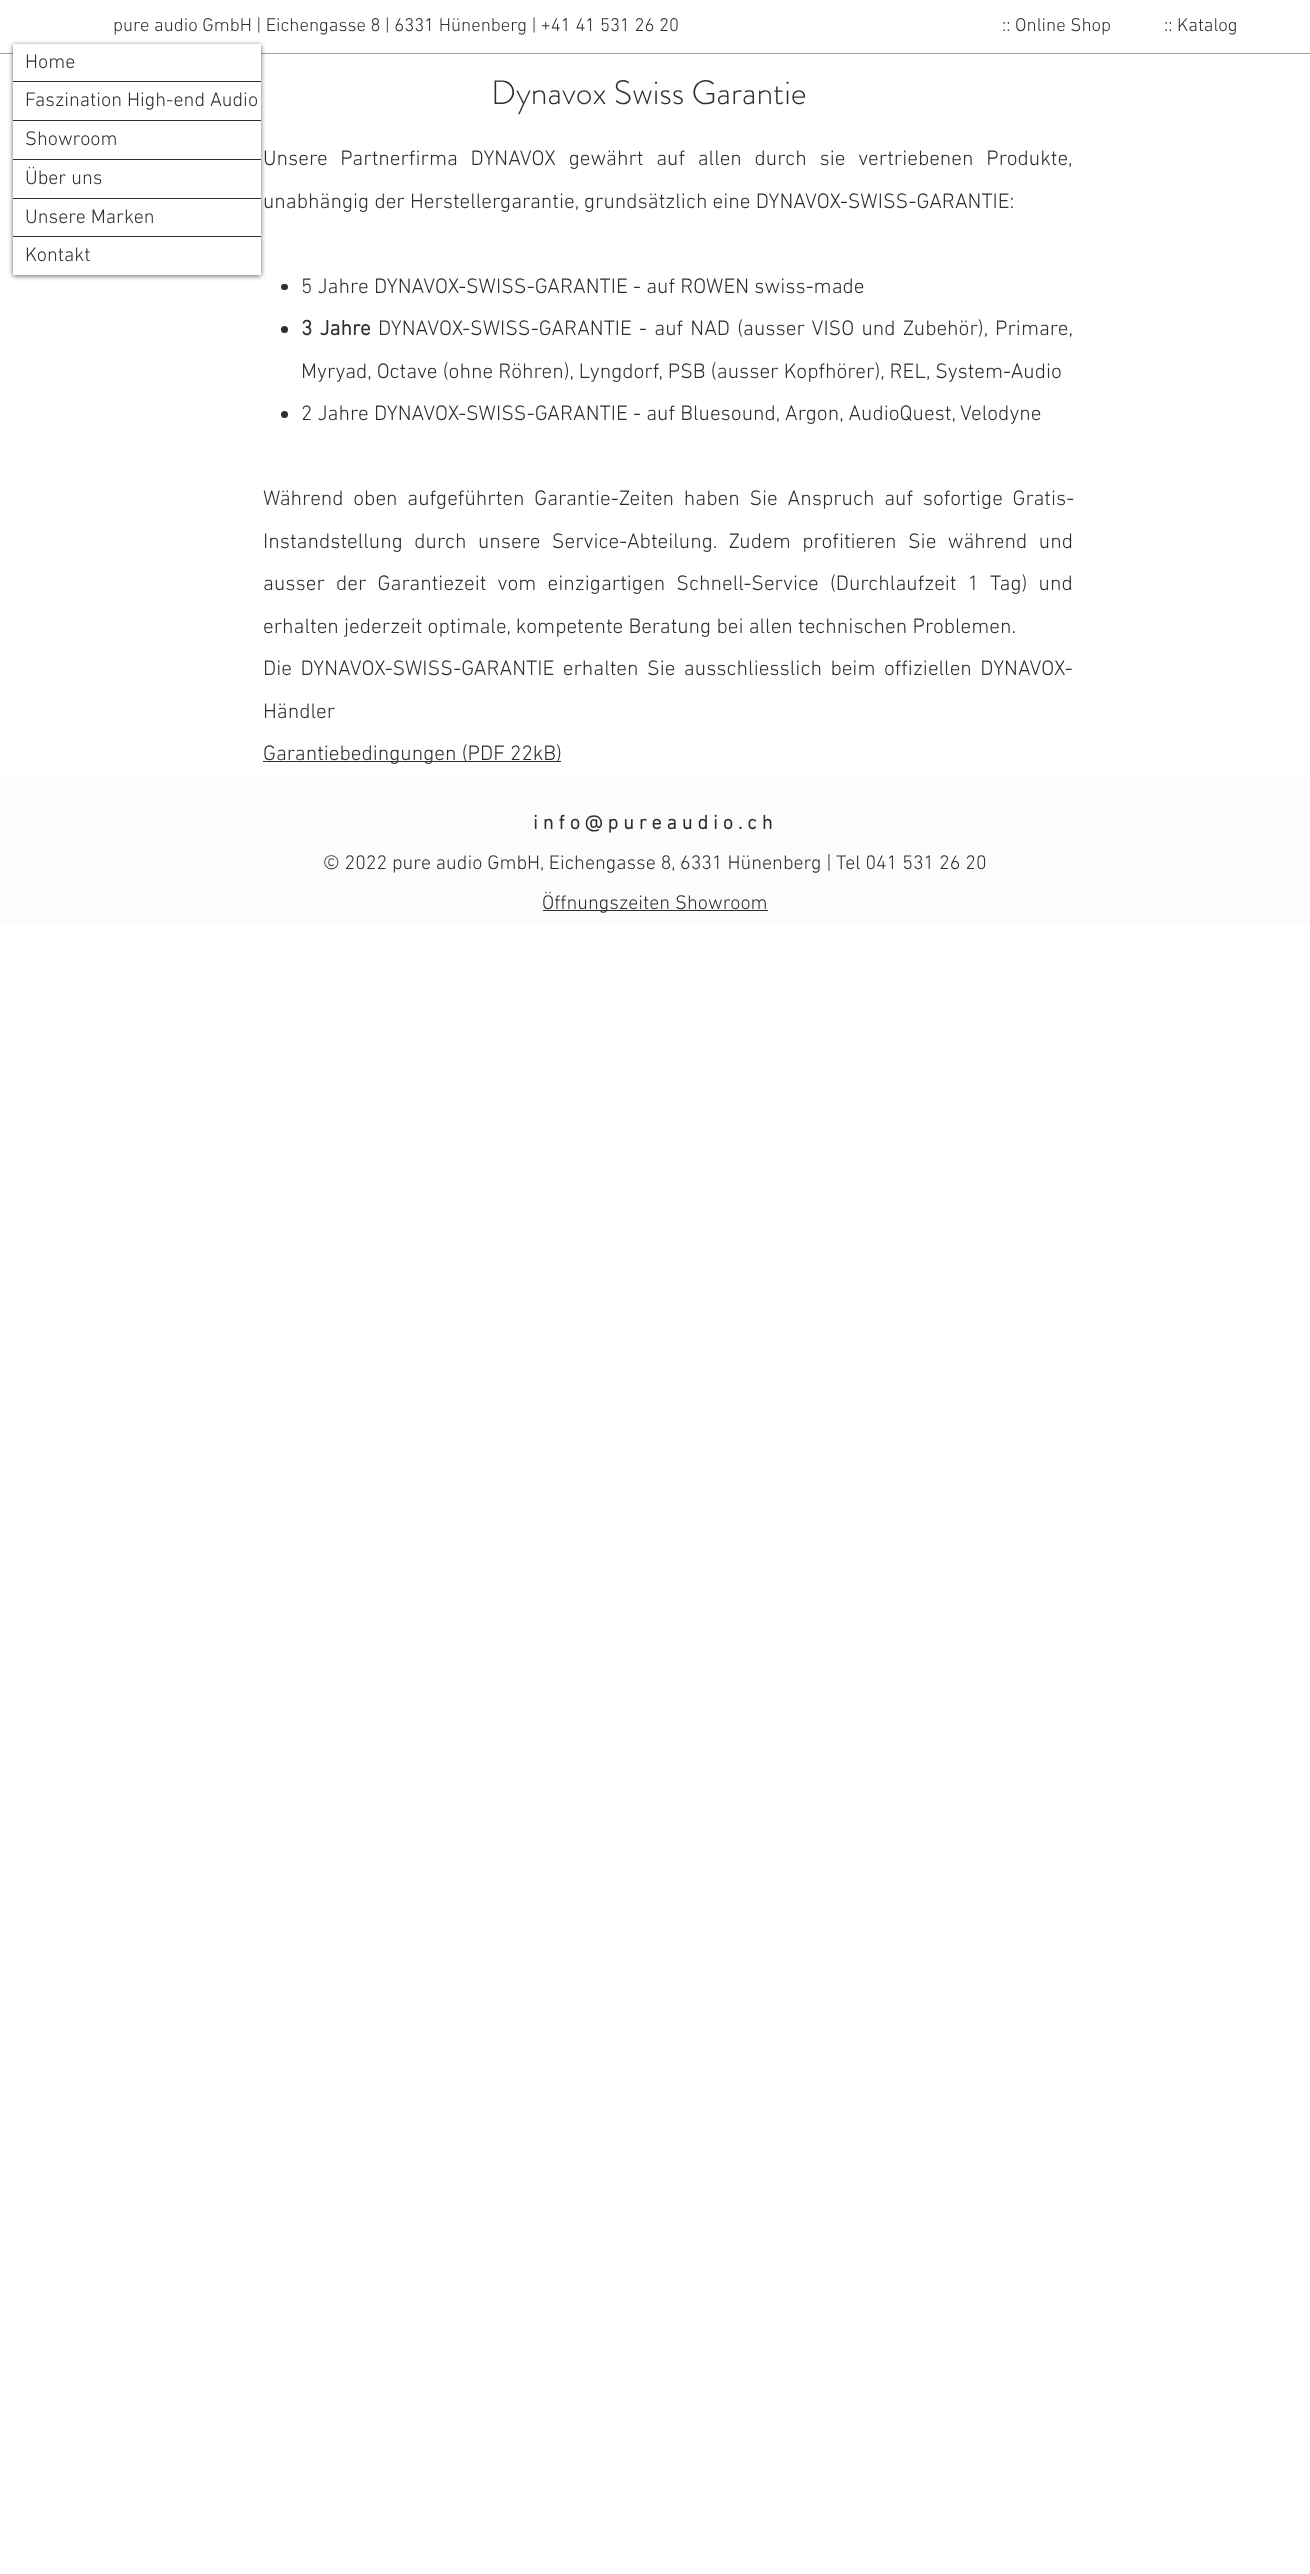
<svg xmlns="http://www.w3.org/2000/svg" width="1310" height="2574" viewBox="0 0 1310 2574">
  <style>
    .t1 { font: 300 18.75px 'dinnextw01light'; fill: #2f2e2e; }
    .t2 { font: 300 20px 'dinnextw01light'; fill: #2f2e2e; }
    .t3 { font: 300 33.75px 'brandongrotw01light'; fill: #2f2e2e; }
    .t4 { font: 300 21.25px 'dinnextw01light'; fill: #2f2e2e; }
    .t5 { font: bold 21.25px 'dinnextw01light'; fill: #2f2e2e; }
    .t6 { font: bold 20px 'dinnextw01light'; letter-spacing: 5px; fill: #2f2e2e; }
  </style>
  <defs>
    <clipPath id="clip1"><path d="M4 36H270V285H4ZM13 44H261V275H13Z" clip-rule="evenodd"/></clipPath>
  </defs>
  <rect width="100%" height="100%" fill="#fff"/>
  <text x="113" y="31" class="t1">pure audio GmbH | Eichengasse 8 | 6331 Hünenberg | +41 41 531 26 20</text>
  <text x="1002" y="31" class="t1">:: Online Shop</text>
  <text x="1164" y="31" class="t1">:: Katalog</text>
  <rect x="0" y="53" width="1310" height="1" fill="#a0a09f"/>
  <g clip-path="url(#clip1)">
    <rect x="13" y="45" width="248" height="231" fill="#00000099" filter="blur(2.5px)"/>
  </g>
  <rect x="13" y="81" width="248" height="1" fill="#2f2e2e"/>
  <rect x="13" y="53" width="248" height="1" fill="#fff"/>
  <text x="25" y="68" class="t2">Home</text>
  <rect x="13" y="120" width="248" height="1" fill="#2f2e2e"/>
  <text x="25" y="106" class="t2">Faszination High-end Audio</text>
  <rect x="13" y="159" width="248" height="1" fill="#2f2e2e"/>
  <text x="25" y="145" class="t2">Showroom</text>
  <rect x="13" y="198" width="248" height="1" fill="#2f2e2e"/>
  <text x="25" y="184" class="t2">Über uns</text>
  <rect x="13" y="236" width="248" height="1" fill="#2f2e2e"/>
  <text x="25" y="223" class="t2">Unsere Marken</text>
  <text x="25" y="261" class="t2">Kontakt</text>
  <text x="491" y="104" class="t3">Dynavox Swiss Garantie</text>
  <text x="263" y="165" word-spacing="7.5" class="t4">Unsere Partnerfirma DYNAVOX gewährt auf allen durch sie vertriebenen Produkte,</text>
  <text x="263" y="208" class="t4">unabhängig der Herstellergarantie, grundsätzlich eine DYNAVOX-SWISS-GARANTIE:</text>
  <rect x="281" y="284" width="7" height="6" rx="3" fill="#2f2e2e"/>
  <text x="301" y="293" class="t4">5 Jahre DYNAVOX-SWISS-GARANTIE - auf ROWEN swiss-made</text>
  <circle cx="284.5" cy="329.5" r="3.5" fill="#2f2e2e"/>
  <text x="301" y="335" word-spacing="2" class="t5">3 Jahre</text>
  <text x="378" y="335" word-spacing="2" class="t4">DYNAVOX-SWISS-GARANTIE - auf NAD (ausser VISO und Zubehör), Primare,</text>
  <text x="301" y="378" class="t4">Myryad, Octave (ohne Röhren), Lyngdorf, PSB (ausser Kopfhörer), REL, System-Audio</text>
  <circle cx="284.5" cy="414.5" r="3.5" fill="#2f2e2e"/>
  <text x="301" y="420" class="t4">2 Jahre DYNAVOX-SWISS-GARANTIE - auf Bluesound, Argon, AudioQuest, Velodyne</text>
  <text x="263" y="505" word-spacing="4.5" class="t4">Während oben aufgeführten Garantie-Zeiten haben Sie Anspruch auf sofortige Gratis-</text>
  <text x="263" y="548" word-spacing="6.25" class="t4">Instandstellung durch unsere Service-Abteilung. Zudem profitieren Sie während und</text>
  <text x="263" y="590" word-spacing="6" class="t4">ausser der Garantiezeit vom einzigartigen Schnell-Service (Durchlaufzeit 1 Tag) und</text>
  <text x="263" y="633" class="t4">erhalten jederzeit optimale, kompetente Beratung bei allen technischen Problemen.</text>
  <text x="263" y="675" word-spacing="3.25" class="t4">Die DYNAVOX-SWISS-GARANTIE erhalten Sie ausschliesslich beim offiziellen DYNAVOX-</text>
  <text x="263" y="718" class="t4">Händler</text>
  <rect x="263" y="761" width="298" height="1" fill="#2f2e2e"/>
  <text x="263" y="760" class="t4">Garantiebedingungen (PDF 22kB)</text>
  <rect x="0" y="776" width="1310" height="148" fill="#fcfcfc"/>
  <text x="533" y="829" class="t6">info@pureaudio.ch</text>
  <text x="323" y="869" class="t2">© 2022 pure audio GmbH, Eichengasse 8, 6331 Hünenberg | Tel 041 531 26 20</text>
  <rect x="543" y="910" width="225" height="1" fill="#2f2e2e"/>
  <text x="542" y="909" class="t2">Öffnungszeiten Showroom</text>
</svg>
